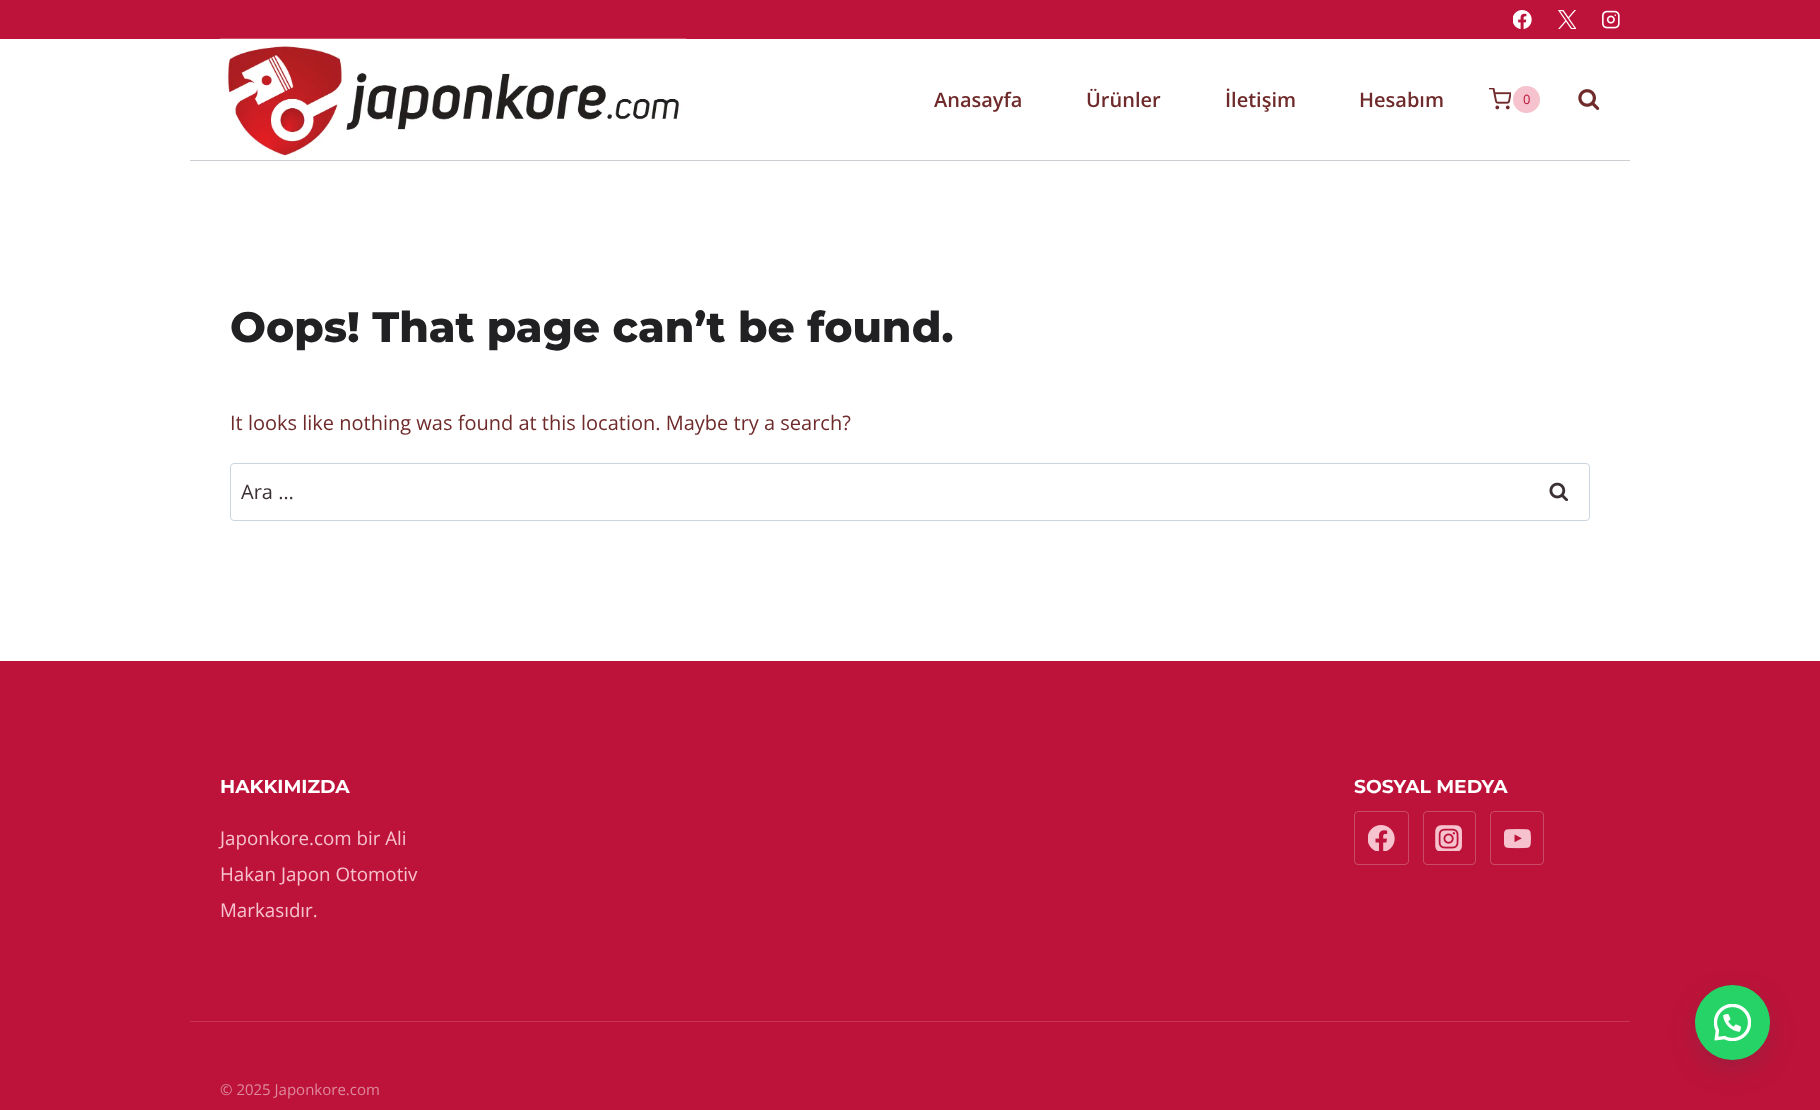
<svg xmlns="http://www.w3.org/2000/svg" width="1820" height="1110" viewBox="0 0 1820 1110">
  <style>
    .t1 { font: 600 20px Open Sans; fill: #6f2b2b; }
    .t2 { font: 13px Open Sans; fill: #bd133a; }
    .t3 { font: 800 42.5px Montserrat; fill: #212123; }
    .t4 { font: 20px Open Sans; fill: #6f2b2b; }
    .t5 { font: 20px Open Sans; fill: #3b3032; }
    .t6 { font: bold 18.75px Montserrat; fill: #fff; }
    .t7 { font: 18.75px Open Sans; fill: #f6c2cd; }
    .t8 { font: 15px Open Sans; fill: #de899d; }
  </style>
  <rect width="100%" height="100%" fill="#fff"/>
  <rect x="0" y="0" width="1820" height="39" fill="#bd133a"/>
  <image x="1513" y="10" width="19" height="19" href="images/1.png"/>
  <image x="1558" y="10" width="18" height="19" href="images/2.png"/>
  <image x="1602" y="10" width="18" height="19" href="images/3.png"/>
  <rect x="190" y="160" width="1440" height="1" fill="#cbcfd3"/>
  <image x="220" y="38" width="467" height="119" href="images/4.png"/>
  <text x="934" y="107" class="t1">Anasayfa</text>
  <text x="1086" y="107" class="t1">Ürünler</text>
  <text x="1225" y="107" class="t1">İletişim</text>
  <text x="1359" y="107" class="t1">Hesabım</text>
  <image x="1489" y="88" width="22" height="22" href="images/5.png"/>
  <circle cx="1526.5" cy="99.5" r="13.5" fill="#f6c2cd"/>
  <text x="1523" y="104" class="t2">0</text>
  <image x="1578" y="89" width="22" height="21" href="images/6.png"/>
  <text x="230" y="342" class="t3">Oops! That page can’t be found.</text>
  <text x="230" y="430" class="t4">It looks like nothing was found at this location. Maybe try a search?</text>
  <rect x="230.5" y="463.5" width="1359" height="57" rx="3.5" fill="none" stroke="#cbd5e0"/>
  <text x="241" y="499" class="t5">Ara …</text>
  <image x="1549" y="482" width="19" height="19" href="images/7.png"/>
  <rect x="0" y="661" width="1820" height="449" fill="#bd133a"/>
  <text x="220" y="793" class="t6">HAKKIMIZDA</text>
  <text x="220" y="845" class="t7">Japonkore.com bir Ali</text>
  <text x="220" y="881" class="t7">Hakan Japon Otomotiv</text>
  <text x="220" y="917" class="t7">Markasıdır.</text>
  <text x="1354" y="793" class="t6">SOSYAL MEDYA</text>
  <rect x="1354.5" y="811.5" width="54" height="53" rx="3.5" fill="none" stroke="#c94b69"/>
  <image x="1368" y="825" width="27" height="26" href="images/8.png"/>
  <rect x="1423.5" y="811.5" width="52" height="53" rx="3.5" fill="none" stroke="#c94b69"/>
  <image x="1435" y="825" width="27" height="26" href="images/9.png"/>
  <rect x="1490.5" y="811.5" width="53" height="53" rx="3.5" fill="none" stroke="#c94b69"/>
  <image x="1504" y="829" width="27" height="20" href="images/10.png"/>
  <rect x="190" y="1021" width="1440" height="1" fill="#c43456"/>
  <text x="220" y="1095" class="t8">© 2025 Japonkore.com</text>
  <rect x="1701" y="1001" width="63" height="63" rx="31.5" fill="#2d3e4f4d" filter="blur(15.5px)"/>
  <circle cx="1732.5" cy="1022.5" r="37.5" fill="#25d366"/>
  <image x="1714" y="1004" width="37" height="37" href="images/11.png"/>
</svg>
